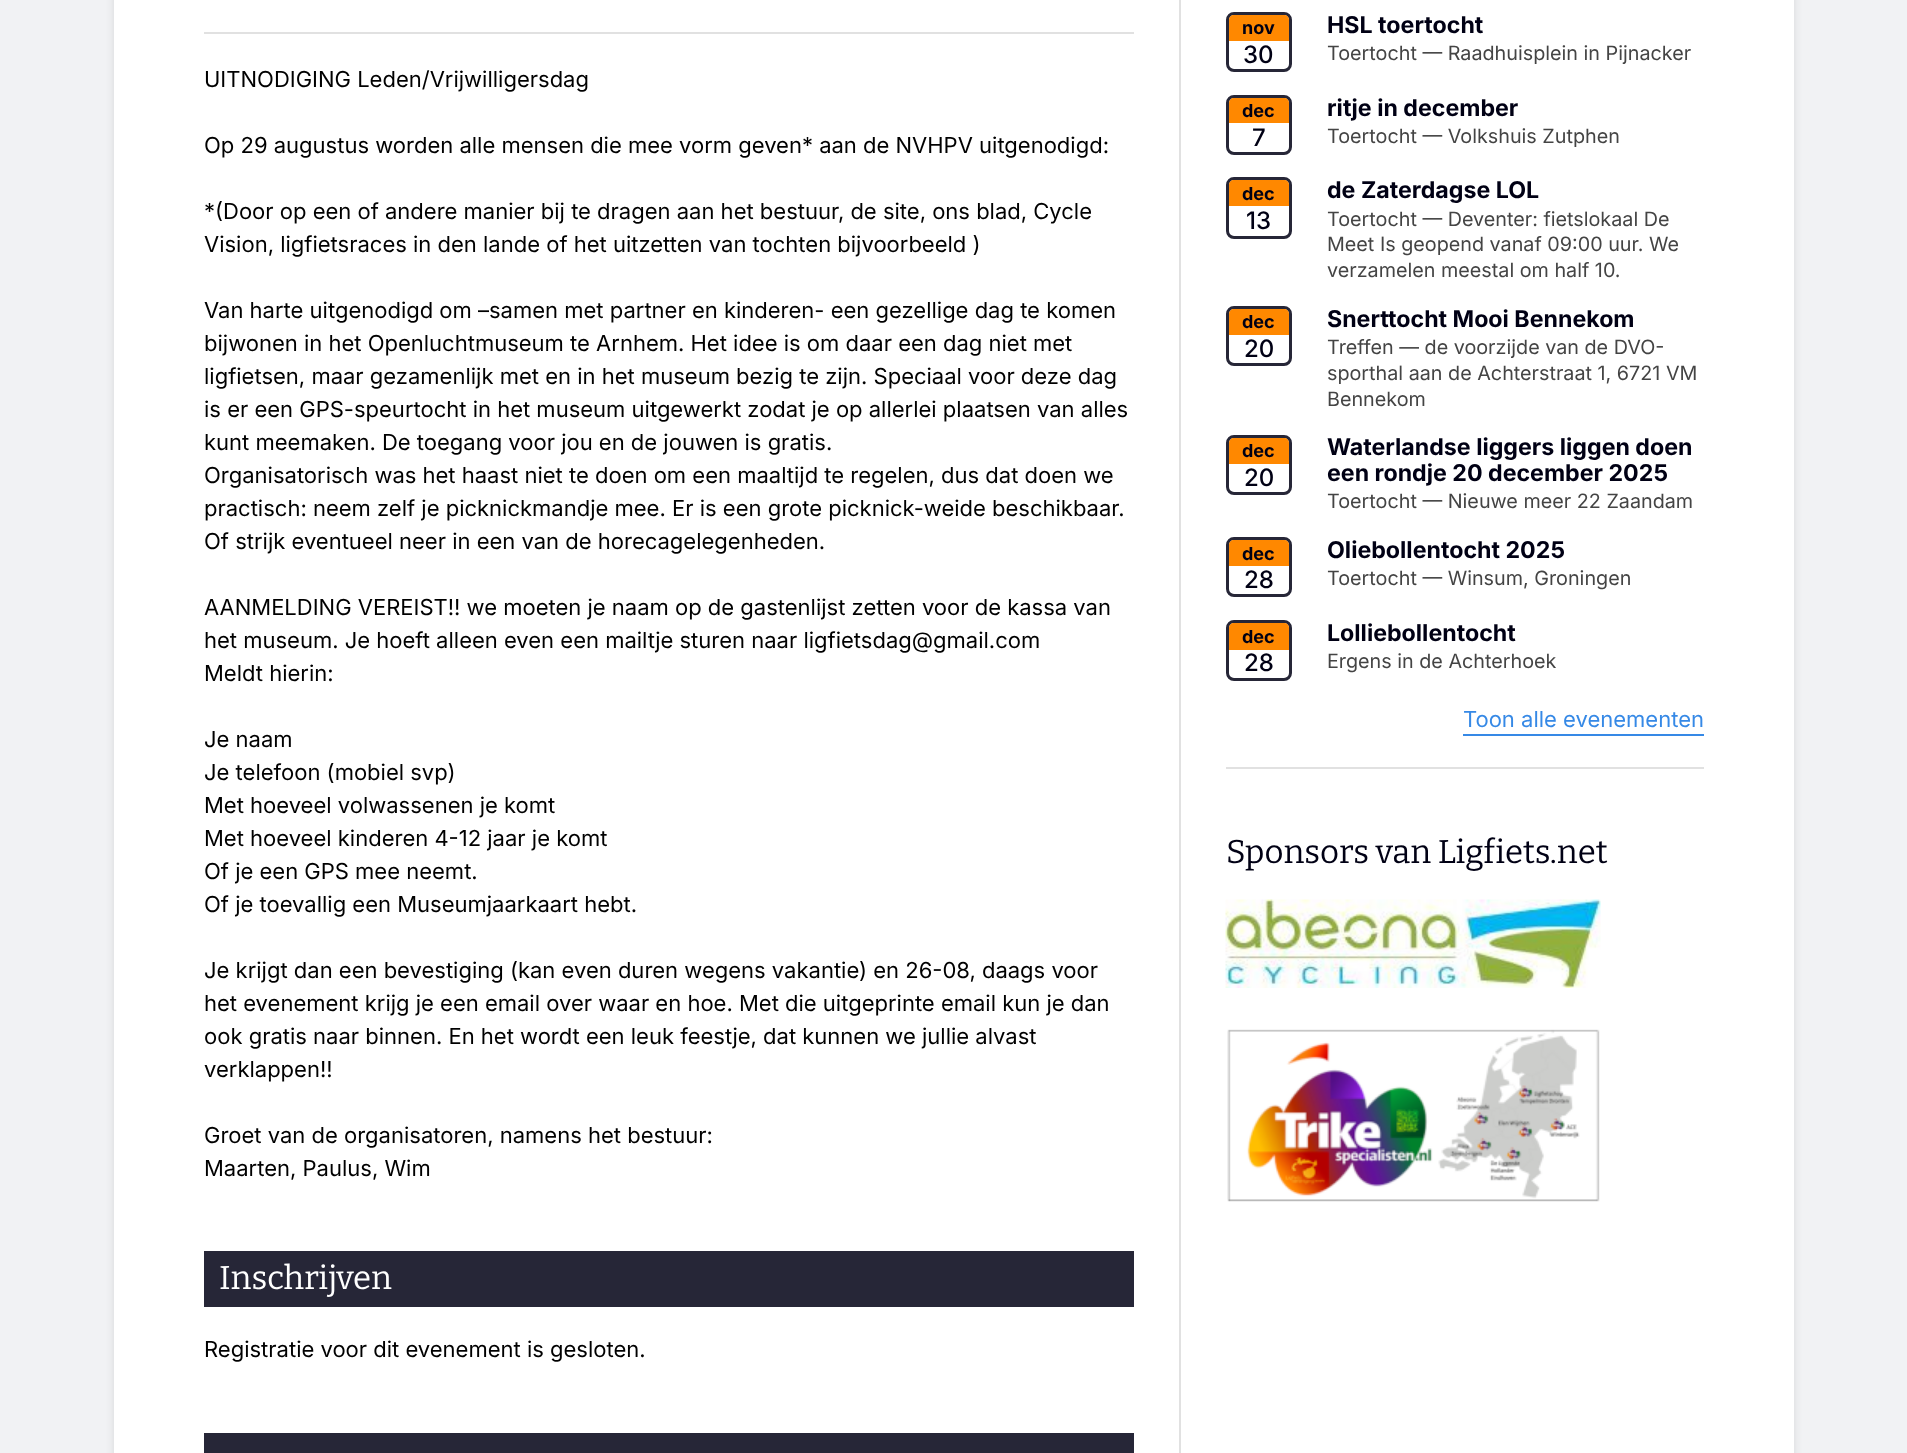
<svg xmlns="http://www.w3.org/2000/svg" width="1907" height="1453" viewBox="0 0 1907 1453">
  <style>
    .t1 { font: 22px Inter; fill: #000; }
    .t2 { font: 33px Bitter; fill: #fff; }
    .t3 { font: bold 18px Inter; fill: #000014; }
    .t4 { font: 500 24px Inter; fill: #000014; }
    .t5 { font: bold 23.2px Inter; fill: #000014; }
    .t6 { font: 19.75px Inter; fill: #444; }
    .t7 { font: 22px Inter; fill: #3689e6; }
    .t8 { font: 33px Bitter; fill: #000014; }
  </style>
  <rect width="100%" height="100%" fill="#f1f2f4"/>
  <rect x="114" y="-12" width="1680" height="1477" fill="#0000001a" filter="blur(4px)"/>
  <rect x="114" y="0" width="1680" height="1453" fill="#fff"/>
  <rect x="204" y="32" width="930" height="2" fill="#e1e1e1"/>
  <text x="204" y="87" class="t1">UITNODIGING Leden/Vrijwilligersdag</text>
  <text x="204" y="153" class="t1">Op 29 augustus worden alle mensen die mee vorm geven* aan de NVHPV uitgenodigd:</text>
  <text x="204" y="219" class="t1">*(Door op een of andere manier bij te dragen aan het bestuur, de site, ons blad, Cycle</text>
  <text x="204" y="252" class="t1">Vision, ligfietsraces in den lande of het uitzetten van tochten bijvoorbeeld )</text>
  <text x="204" y="318" class="t1">Van harte uitgenodigd om –samen met partner en kinderen- een gezellige dag te komen</text>
  <text x="204" y="351" class="t1">bijwonen in het Openluchtmuseum te Arnhem. Het idee is om daar een dag niet met</text>
  <text x="204" y="384" class="t1">ligfietsen, maar gezamenlijk met en in het museum bezig te zijn. Speciaal voor deze dag</text>
  <text x="204" y="417" class="t1">is er een GPS-speurtocht in het museum uitgewerkt zodat je op allerlei plaatsen van alles</text>
  <text x="204" y="450" class="t1">kunt meemaken. De toegang voor jou en de jouwen is gratis.</text>
  <text x="204" y="483" class="t1">Organisatorisch was het haast niet te doen om een maaltijd te regelen, dus dat doen we</text>
  <text x="204" y="516" class="t1">practisch: neem zelf je picknickmandje mee.</text>
  <text x="672" y="516" class="t1">Er is een grote picknick-weide beschikbaar.</text>
  <text x="204" y="549" class="t1">Of strijk eventueel neer in een van de horecagelegenheden.</text>
  <text x="204" y="615" class="t1">AANMELDING VEREIST!! we moeten je naam op de gastenlijst zetten voor de kassa van</text>
  <text x="204" y="648" class="t1">het museum. Je hoeft alleen even een mailtje sturen naar ligfietsdag@gmail.com</text>
  <text x="204" y="681" class="t1">Meldt hierin:</text>
  <text x="204" y="747" class="t1">Je naam</text>
  <text x="204" y="780" class="t1">Je telefoon (mobiel svp)</text>
  <text x="204" y="813" class="t1">Met hoeveel volwassenen je komt</text>
  <text x="204" y="846" class="t1">Met hoeveel kinderen 4-12 jaar je komt</text>
  <text x="204" y="879" class="t1">Of je een GPS mee neemt.</text>
  <text x="204" y="912" class="t1">Of je toevallig een Museumjaarkaart hebt.</text>
  <text x="204" y="978" class="t1">Je krijgt dan een bevestiging (kan even duren wegens vakantie) en 26-08, daags voor</text>
  <text x="204" y="1011" class="t1">het evenement krijg je een email over waar en hoe. Met die uitgeprinte email kun je dan</text>
  <text x="204" y="1044" class="t1">ook gratis naar binnen. En het wordt een leuk feestje, dat kunnen we jullie alvast</text>
  <text x="204" y="1077" class="t1">verklappen!!</text>
  <text x="204" y="1143" class="t1">Groet van de organisatoren, namens het bestuur:</text>
  <text x="204" y="1176" class="t1">Maarten, Paulus, Wim</text>
  <rect x="204" y="1251" width="930" height="56" fill="#262637"/>
  <text x="219" y="1289" class="t2">Inschrijven</text>
  <text x="204" y="1357" class="t1">Registratie voor dit evenement is gesloten.</text>
  <rect x="204" y="1433" width="930" height="20" fill="#262637"/>
  <rect x="1179" y="0" width="2" height="1453" fill="#e1e1e1"/>
  <rect x="1227.5" y="13.5" width="63" height="57" rx="6.5" fill="none" stroke="#262637" stroke-width="3"/>
  <path d="M1234 15H1284C1287 15 1289 17 1289 20V41H1229V20C1229 17 1231 15 1234 15Z" fill="#f80"/>
  <text x="1242" y="34" class="t3">nov</text>
  <text x="1243" y="63" class="t4">30</text>
  <text x="1327" y="33" class="t5">HSL toertocht</text>
  <text x="1327" y="60" class="t6">Toertocht — Raadhuisplein in Pijnacker</text>
  <rect x="1227.5" y="96.5" width="63" height="57" rx="6.5" fill="none" stroke="#262637" stroke-width="3"/>
  <path d="M1234 98H1284C1287 98 1289 100 1289 103V123H1229V103C1229 100 1231 98 1234 98Z" fill="#f80"/>
  <text x="1242" y="117" class="t3">dec</text>
  <text x="1252" y="146" class="t4">7</text>
  <text x="1327" y="116" class="t5">ritje in december</text>
  <text x="1327" y="143" class="t6">Toertocht — Volkshuis Zutphen</text>
  <rect x="1227.5" y="178.5" width="63" height="59" rx="6.5" fill="none" stroke="#262637" stroke-width="3"/>
  <path d="M1234 180H1284C1287 180 1289 182 1289 185V206H1229V185C1229 182 1231 180 1234 180Z" fill="#f80"/>
  <text x="1242" y="200" class="t3">dec</text>
  <text x="1246" y="229" class="t4">13</text>
  <text x="1327" y="198" class="t5">de Zaterdagse LOL</text>
  <text x="1327" y="226" class="t6">Toertocht — Deventer: fietslokaal De</text>
  <text x="1327" y="251" class="t6">Meet Is geopend vanaf 09:00 uur. We</text>
  <text x="1327" y="277" class="t6">verzamelen meestal om half 10.</text>
  <rect x="1227.5" y="307.5" width="63" height="57" rx="6.5" fill="none" stroke="#262637" stroke-width="3"/>
  <path d="M1234 309H1284C1287 309 1289 311 1289 314V335H1229V314C1229 311 1231 309 1234 309Z" fill="#f80"/>
  <text x="1242" y="328" class="t3">dec</text>
  <text x="1244" y="357" class="t4">20</text>
  <text x="1327" y="327" class="t5">Snerttocht Mooi Bennekom</text>
  <text x="1327" y="354" class="t6">Treffen — de voorzijde van de DVO-</text>
  <text x="1327" y="380" class="t6">sporthal aan de Achterstraat 1, 6721 VM</text>
  <text x="1327" y="406" class="t6">Bennekom</text>
  <rect x="1227.5" y="436.5" width="63" height="57" rx="6.5" fill="none" stroke="#262637" stroke-width="3"/>
  <path d="M1234 438H1284C1287 438 1289 440 1289 443V464H1229V443C1229 440 1231 438 1234 438Z" fill="#f80"/>
  <text x="1242" y="457" class="t3">dec</text>
  <text x="1244" y="486" class="t4">20</text>
  <text x="1327" y="455" class="t5">Waterlandse liggers liggen doen</text>
  <text x="1327" y="481" class="t5">een rondje 20 december 2025</text>
  <text x="1327" y="508" class="t6">Toertocht — Nieuwe meer 22 Zaandam</text>
  <rect x="1227.5" y="538.5" width="63" height="57" rx="6.5" fill="none" stroke="#262637" stroke-width="3"/>
  <path d="M1234 540H1284C1287 540 1289 542 1289 545V566H1229V545C1229 542 1231 540 1234 540Z" fill="#f80"/>
  <text x="1242" y="560" class="t3">dec</text>
  <text x="1244" y="588" class="t4">28</text>
  <text x="1327" y="558" class="t5">Oliebollentocht 2025</text>
  <text x="1327" y="585" class="t6">Toertocht — Winsum, Groningen</text>
  <rect x="1227.5" y="621.5" width="63" height="58" rx="6.5" fill="none" stroke="#262637" stroke-width="3"/>
  <path d="M1234 623H1284C1287 623 1289 625 1289 628V650H1229V628C1229 625 1231 623 1234 623Z" fill="#f80"/>
  <text x="1242" y="643" class="t3">dec</text>
  <text x="1244" y="671" class="t4">28</text>
  <text x="1327" y="641" class="t5">Lolliebollentocht</text>
  <text x="1327" y="668" class="t6">Ergens in de Achterhoek</text>
  <text x="1463" y="727" class="t7">Toon alle evenementen</text>
  <rect x="1463" y="734" width="241" height="2" fill="#3689e6"/>
  <rect x="1226" y="767" width="478" height="2" fill="#e1e1e1"/>
  <text x="1226" y="863" class="t8">Sponsors van Ligfiets.net</text>
  <image x="1225" y="899" width="376" height="89" href="images/1.png"/>
  <image x="1227" y="1029" width="373" height="173" href="images/2.png"/>
</svg>
